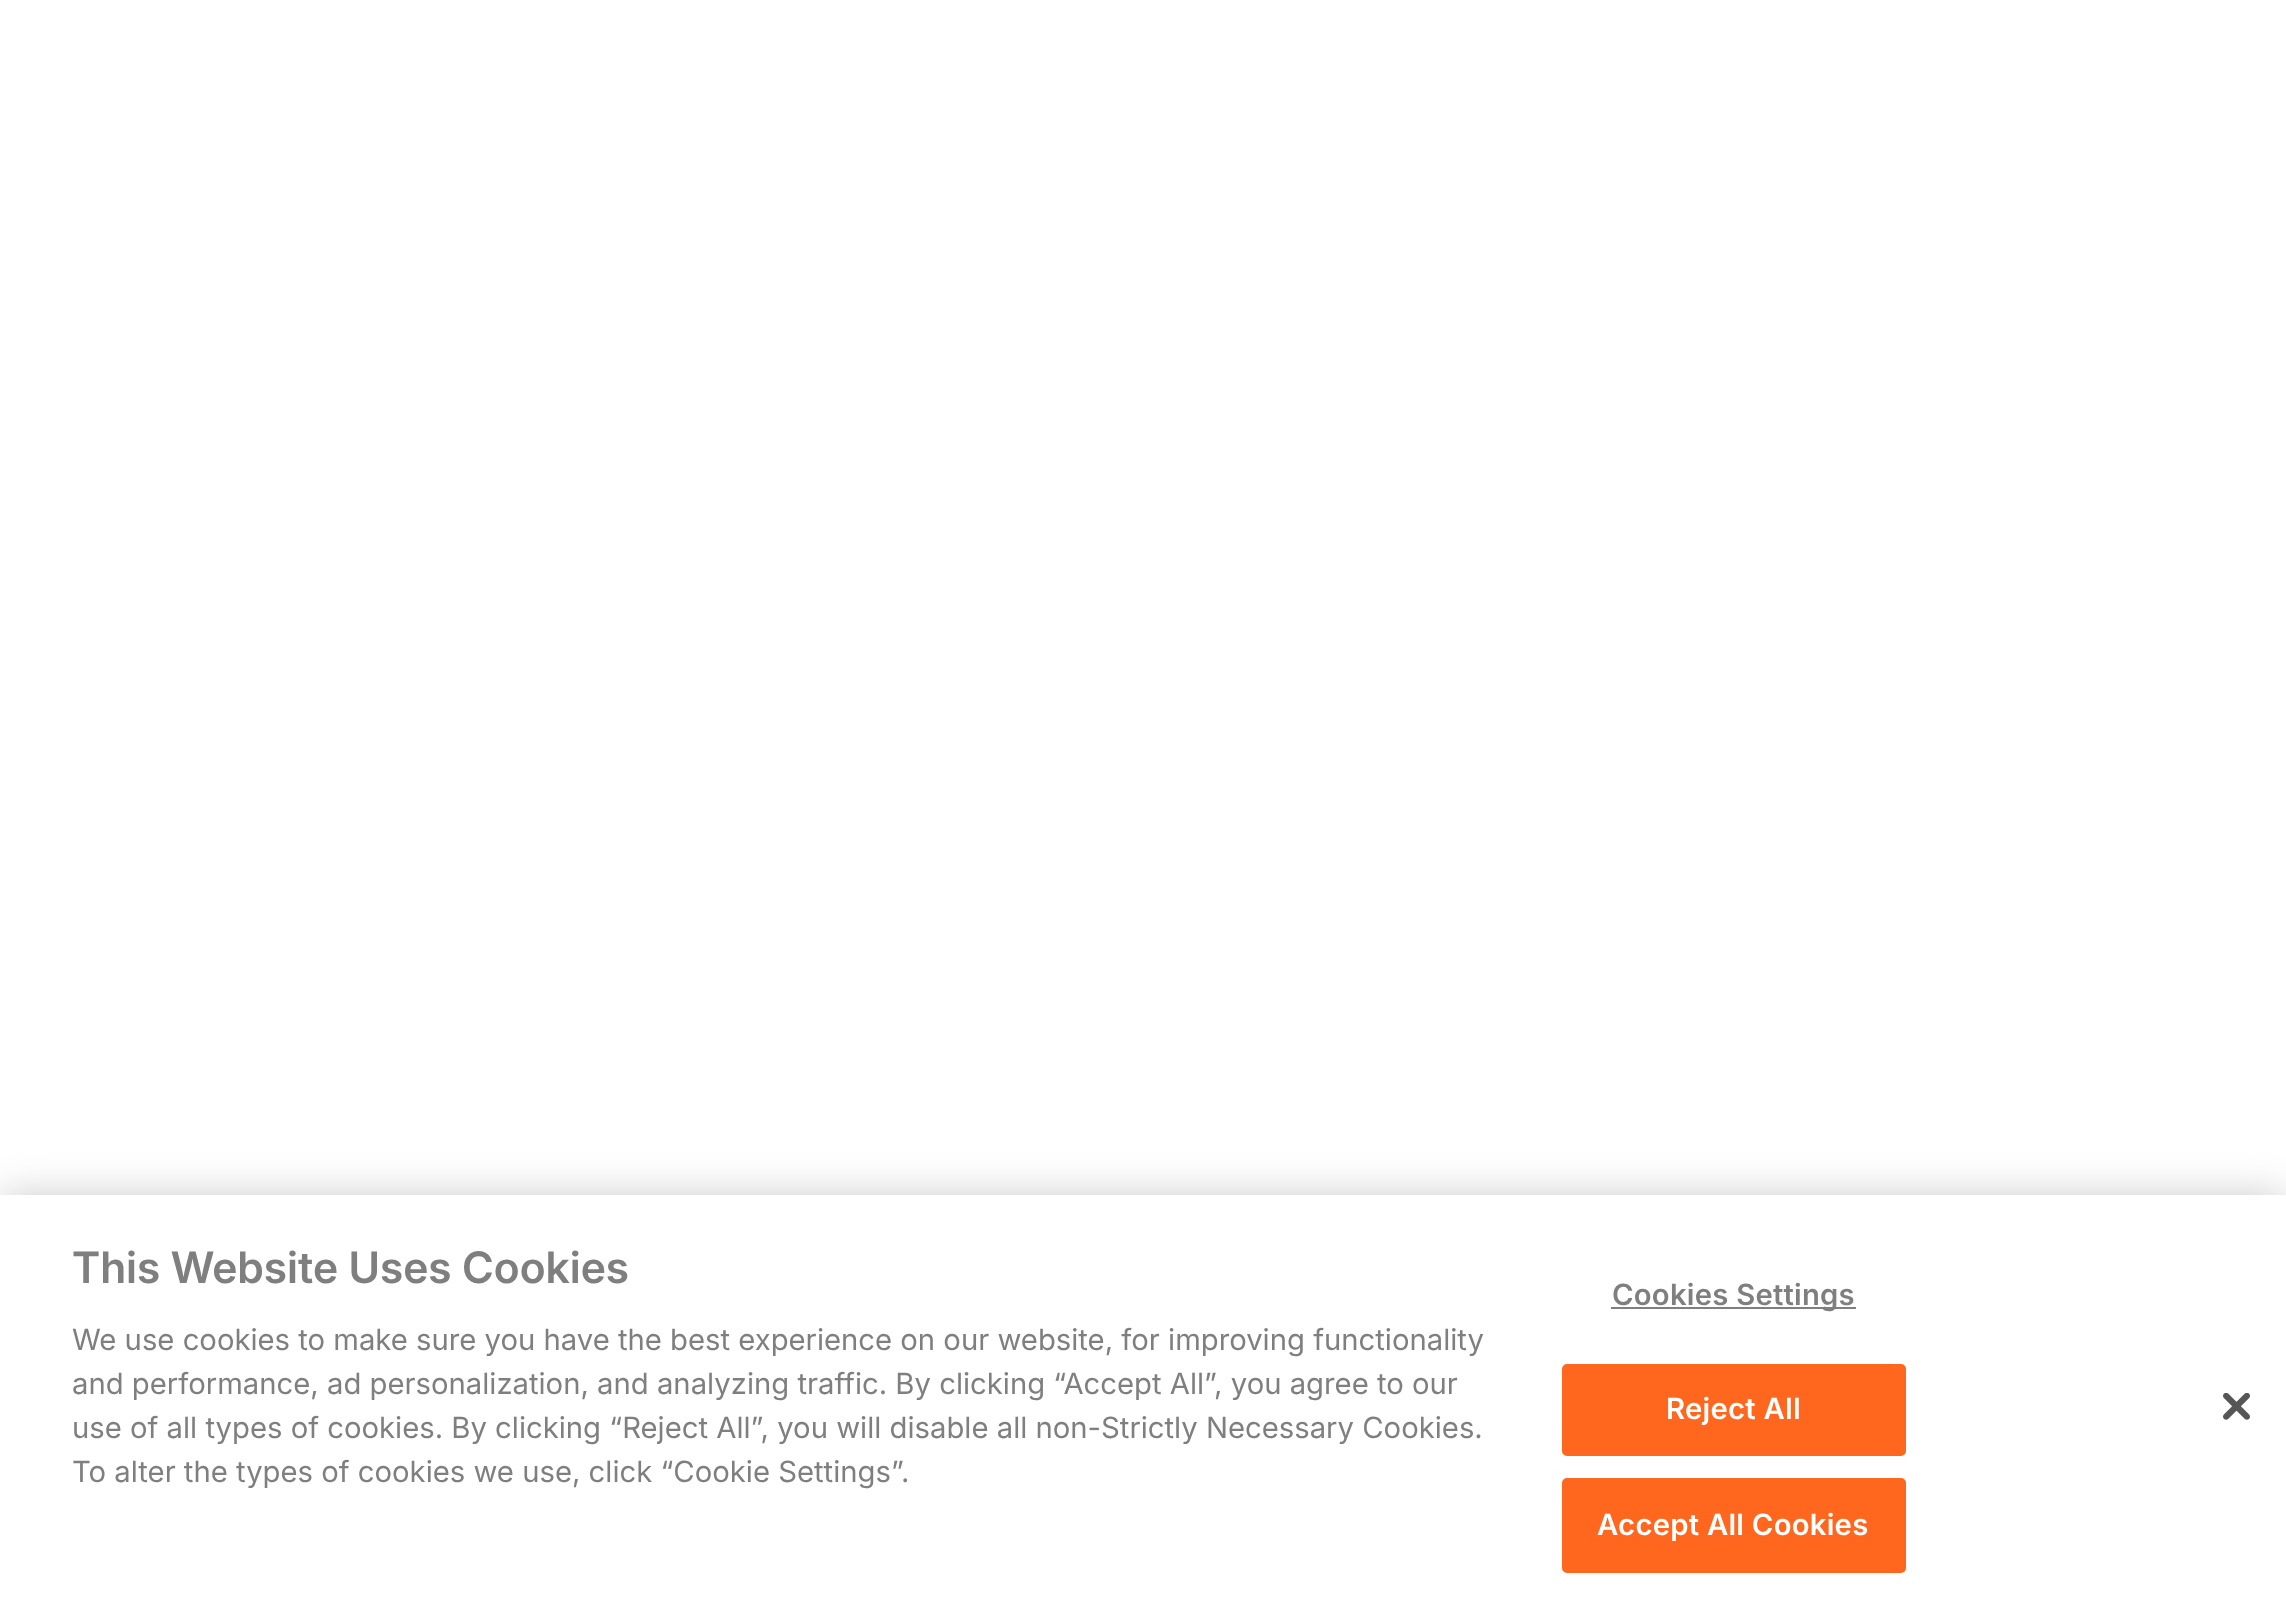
<svg xmlns="http://www.w3.org/2000/svg" width="2286" height="1616" viewBox="0 0 2286 1616">
  <style>
    .t1 { font: 600 43.25px 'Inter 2'; fill: #7f7f7f; }
    .t2 { font: 29.25px Inter; fill: #7f7f7f; }
    .t3 { font: 600 29.25px Inter; letter-spacing: 0.25px; fill: #7f7f7f; }
    .t4 { font: 600 29.25px Inter; letter-spacing: 0.25px; fill: #fff; }
  </style>
  <rect width="100%" height="100%" fill="#fff"/>
  <rect x="0" y="1195" width="2286" height="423" fill="#00000033" filter="blur(20px)"/>
  <rect x="0" y="1195" width="2286" height="421" fill="#fff"/>
  <text x="72" y="1283" class="t1">This Website Uses Cookies</text>
  <text x="72" y="1350" class="t2">We use cookies to make sure you have the best experience on our website, for improving functionality</text>
  <text x="72" y="1394" class="t2">and performance, ad personalization, and analyzing traffic. By clicking “Accept All”, you agree to our</text>
  <text x="72" y="1438" class="t2">use of all types of cookies. By clicking “Reject All”, you will disable all non-Strictly Necessary Cookies.</text>
  <text x="72" y="1482" class="t2">To alter the types of cookies we use, click “Cookie Settings”.</text>
  <rect x="1611" y="1307" width="245" height="2" fill="#7f7f7f"/>
  <text x="1612" y="1305" class="t3">Cookies Settings</text>
  <rect x="1563" y="1365" width="342" height="90" rx="4" fill="#ff671f" stroke="#ff671f" stroke-width="2"/>
  <text x="1666" y="1419" class="t4">Reject All</text>
  <rect x="1563" y="1479" width="342" height="93" rx="4" fill="#ff671f" stroke="#ff671f" stroke-width="2"/>
  <text x="1597" y="1535" class="t4">Accept All Cookies</text>
  <image x="2223" y="1393" width="27" height="27" href="images/1.png"/>
</svg>
